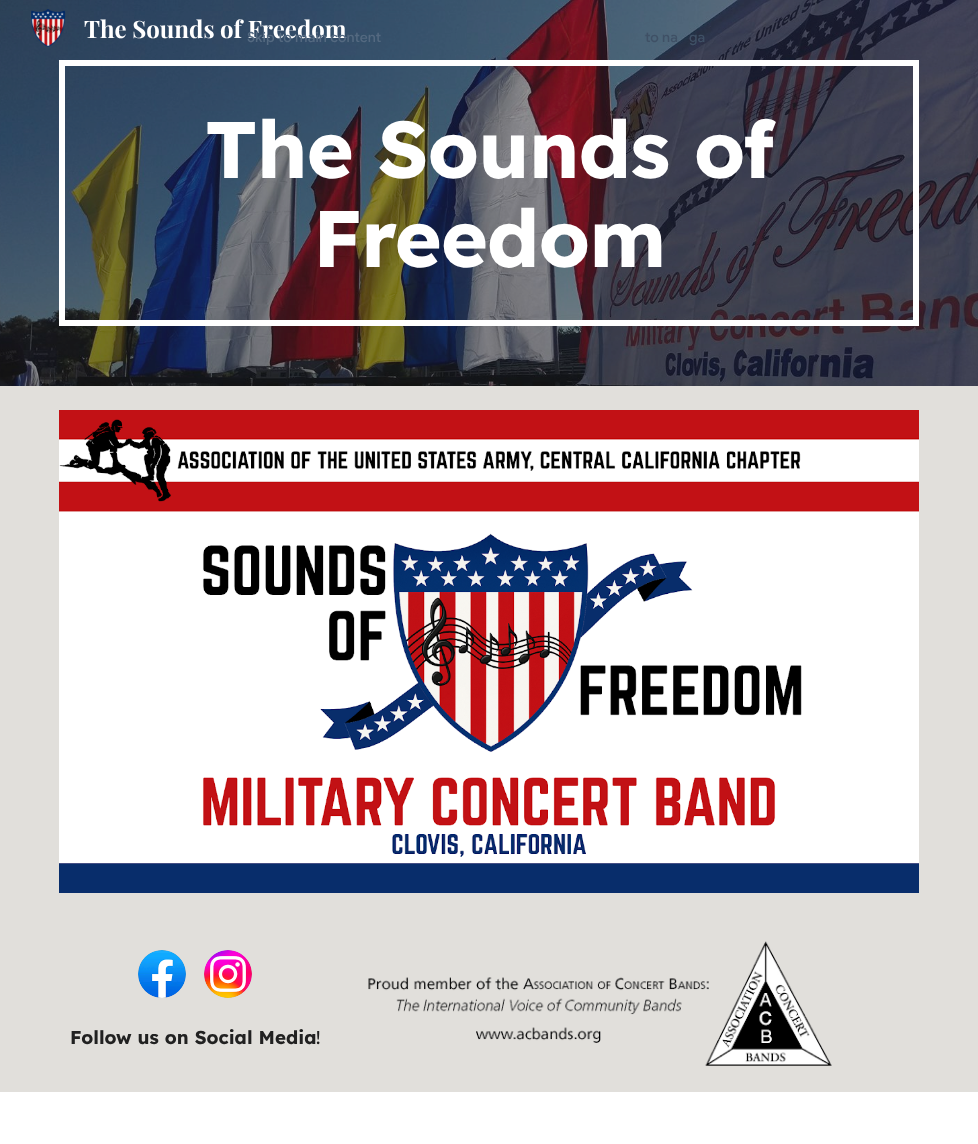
<svg xmlns="http://www.w3.org/2000/svg" width="978" height="1144" viewBox="0 0 978 1144">
  <style>
    .t1 { font: bold 24px Playfair Display; fill: #fff; }
    .t2 { font: bold 80px Lexend; letter-spacing: -0.75px; fill: #fff; }
    .t3 { font: bold 18.7px Lexend; fill: #212121; }
    .t4 { font: 18.7px Lexend; fill: #212121; }
    .t5 { font: 500 14px Google Sans; letter-spacing: 0.1px; fill: #546980; }
    .t6 { font: 500 14px Google Sans; letter-spacing: 0.1px; fill: #3f5065; }
  </style>
  <rect width="100%" height="100%" fill="#fff"/>
  <image x="0" y="0" width="978" height="386" href="images/2.png"/>
  <image x="30" y="9" width="36" height="38" href="images/1.png"/>
  <text x="84" y="38" class="t1">The Sounds of Freedom</text>
  <rect x="62" y="63" width="854" height="260" fill="none" stroke="#fff" stroke-width="6"/>
  <text x="205" y="178" class="t2">The Sounds of</text>
  <text x="313" y="267" class="t2">Freedom</text>
  <rect x="0" y="386" width="978" height="706" fill="#e1dfdb"/>
  <image x="59" y="410" width="860" height="483" href="images/3.png"/>
  <image x="138" y="950" width="48" height="48" href="images/4.png"/>
  <image x="204" y="950" width="48" height="48" href="images/5.png"/>
  <text x="70" y="1044" class="t3">Follow us on Social Media</text>
  <text x="316" y="1044" class="t4">!</text>
  <image x="368" y="941" width="464" height="125" href="images/6.png"/>
  <text x="247" y="42" class="t5">Skip to main content</text>
  <text x="645" y="42" class="t6">to na</text>
  <text x="689" y="42" class="t6">ga</text>
</svg>
